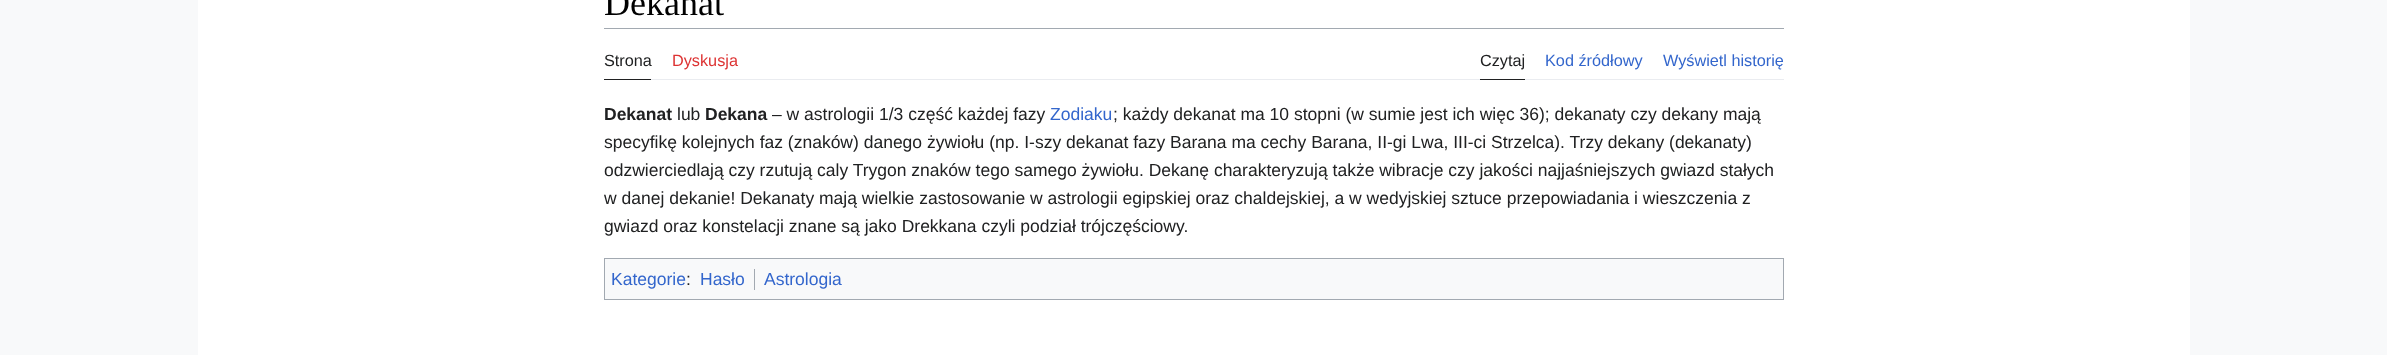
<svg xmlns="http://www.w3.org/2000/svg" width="2387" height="355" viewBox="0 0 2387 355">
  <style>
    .t1 { font: 36px Liberation Serif; fill: #000; }
    .t2 { font: 16.25px Liberation Sans; fill: #202122; }
    .t3 { font: 16.25px Liberation Sans; fill: #d33; }
    .t4 { font: 16.25px Liberation Sans; fill: #36c; }
    .t5 { font: bold 17.5px Liberation Sans; fill: #202122; }
    .t6 { font: 17.5px Liberation Sans; fill: #202122; }
    .t7 { font: 17.5px Liberation Sans; fill: #36c; }
  </style>
  <rect width="100%" height="100%" fill="#f8f9fa"/>
  <rect x="198" y="0" width="1992" height="355" fill="#fff"/>
  <rect x="604" y="28" width="1180" height="1" fill="#a2a9b1"/>
  <text x="604" y="15" class="t1">Dekanat</text>
  <rect x="651" y="79" width="1133" height="1" fill="#eaecf0"/>
  <rect x="604" y="79" width="47" height="1" fill="#202122"/>
  <text x="604" y="66" class="t2">Strona</text>
  <text x="672" y="66" class="t3">Dyskusja</text>
  <rect x="1480" y="79" width="45" height="1" fill="#202122"/>
  <text x="1480" y="66" class="t2">Czytaj</text>
  <text x="1545" y="66" class="t4">Kod źródłowy</text>
  <text x="1663" y="66" class="t4">Wyświetl historię</text>
  <text x="604" y="120" class="t5">Dekanat</text>
  <text x="677" y="120" class="t6">lub</text>
  <text x="705" y="120" class="t5">Dekana</text>
  <text x="772" y="120" class="t6">– w astrologii 1/3 część każdej fazy</text>
  <text x="1050" y="120" class="t7">Zodiaku</text>
  <text x="1113" y="120" class="t6">; każdy dekanat ma 10 stopni (w sumie jest ich więc 36); dekanaty czy dekany mają</text>
  <text x="604" y="148" class="t6">specyfikę kolejnych faz (znaków) danego żywiołu (np. I-szy dekanat fazy Barana ma cechy Barana, II-gi Lwa, III-ci Strzelca). Trzy dekany (dekanaty)</text>
  <text x="604" y="176" class="t6">odzwierciedlają czy rzutują caly Trygon znaków tego samego żywiołu. Dekanę charakteryzują także wibracje czy jakości najjaśniejszych gwiazd stałych</text>
  <text x="604" y="204" class="t6">w danej dekanie! Dekanaty mają wielkie zastosowanie w astrologii egipskiej oraz chaldejskiej, a w wedyjskiej sztuce przepowiadania i wieszczenia z</text>
  <text x="604" y="232" class="t6">gwiazd oraz konstelacji znane są jako Drekkana czyli podział trójczęściowy.</text>
  <rect x="604.5" y="258.5" width="1179" height="41" fill="#f8f9fa" stroke="#a2a9b1"/>
  <text x="611" y="285" class="t7">Kategorie</text>
  <text x="686" y="285" class="t6">:</text>
  <text x="700" y="285" class="t7">Hasło</text>
  <rect x="754" y="269" width="1" height="21" fill="#a2a9b1"/>
  <text x="764" y="285" class="t7">Astrologia</text>
</svg>
